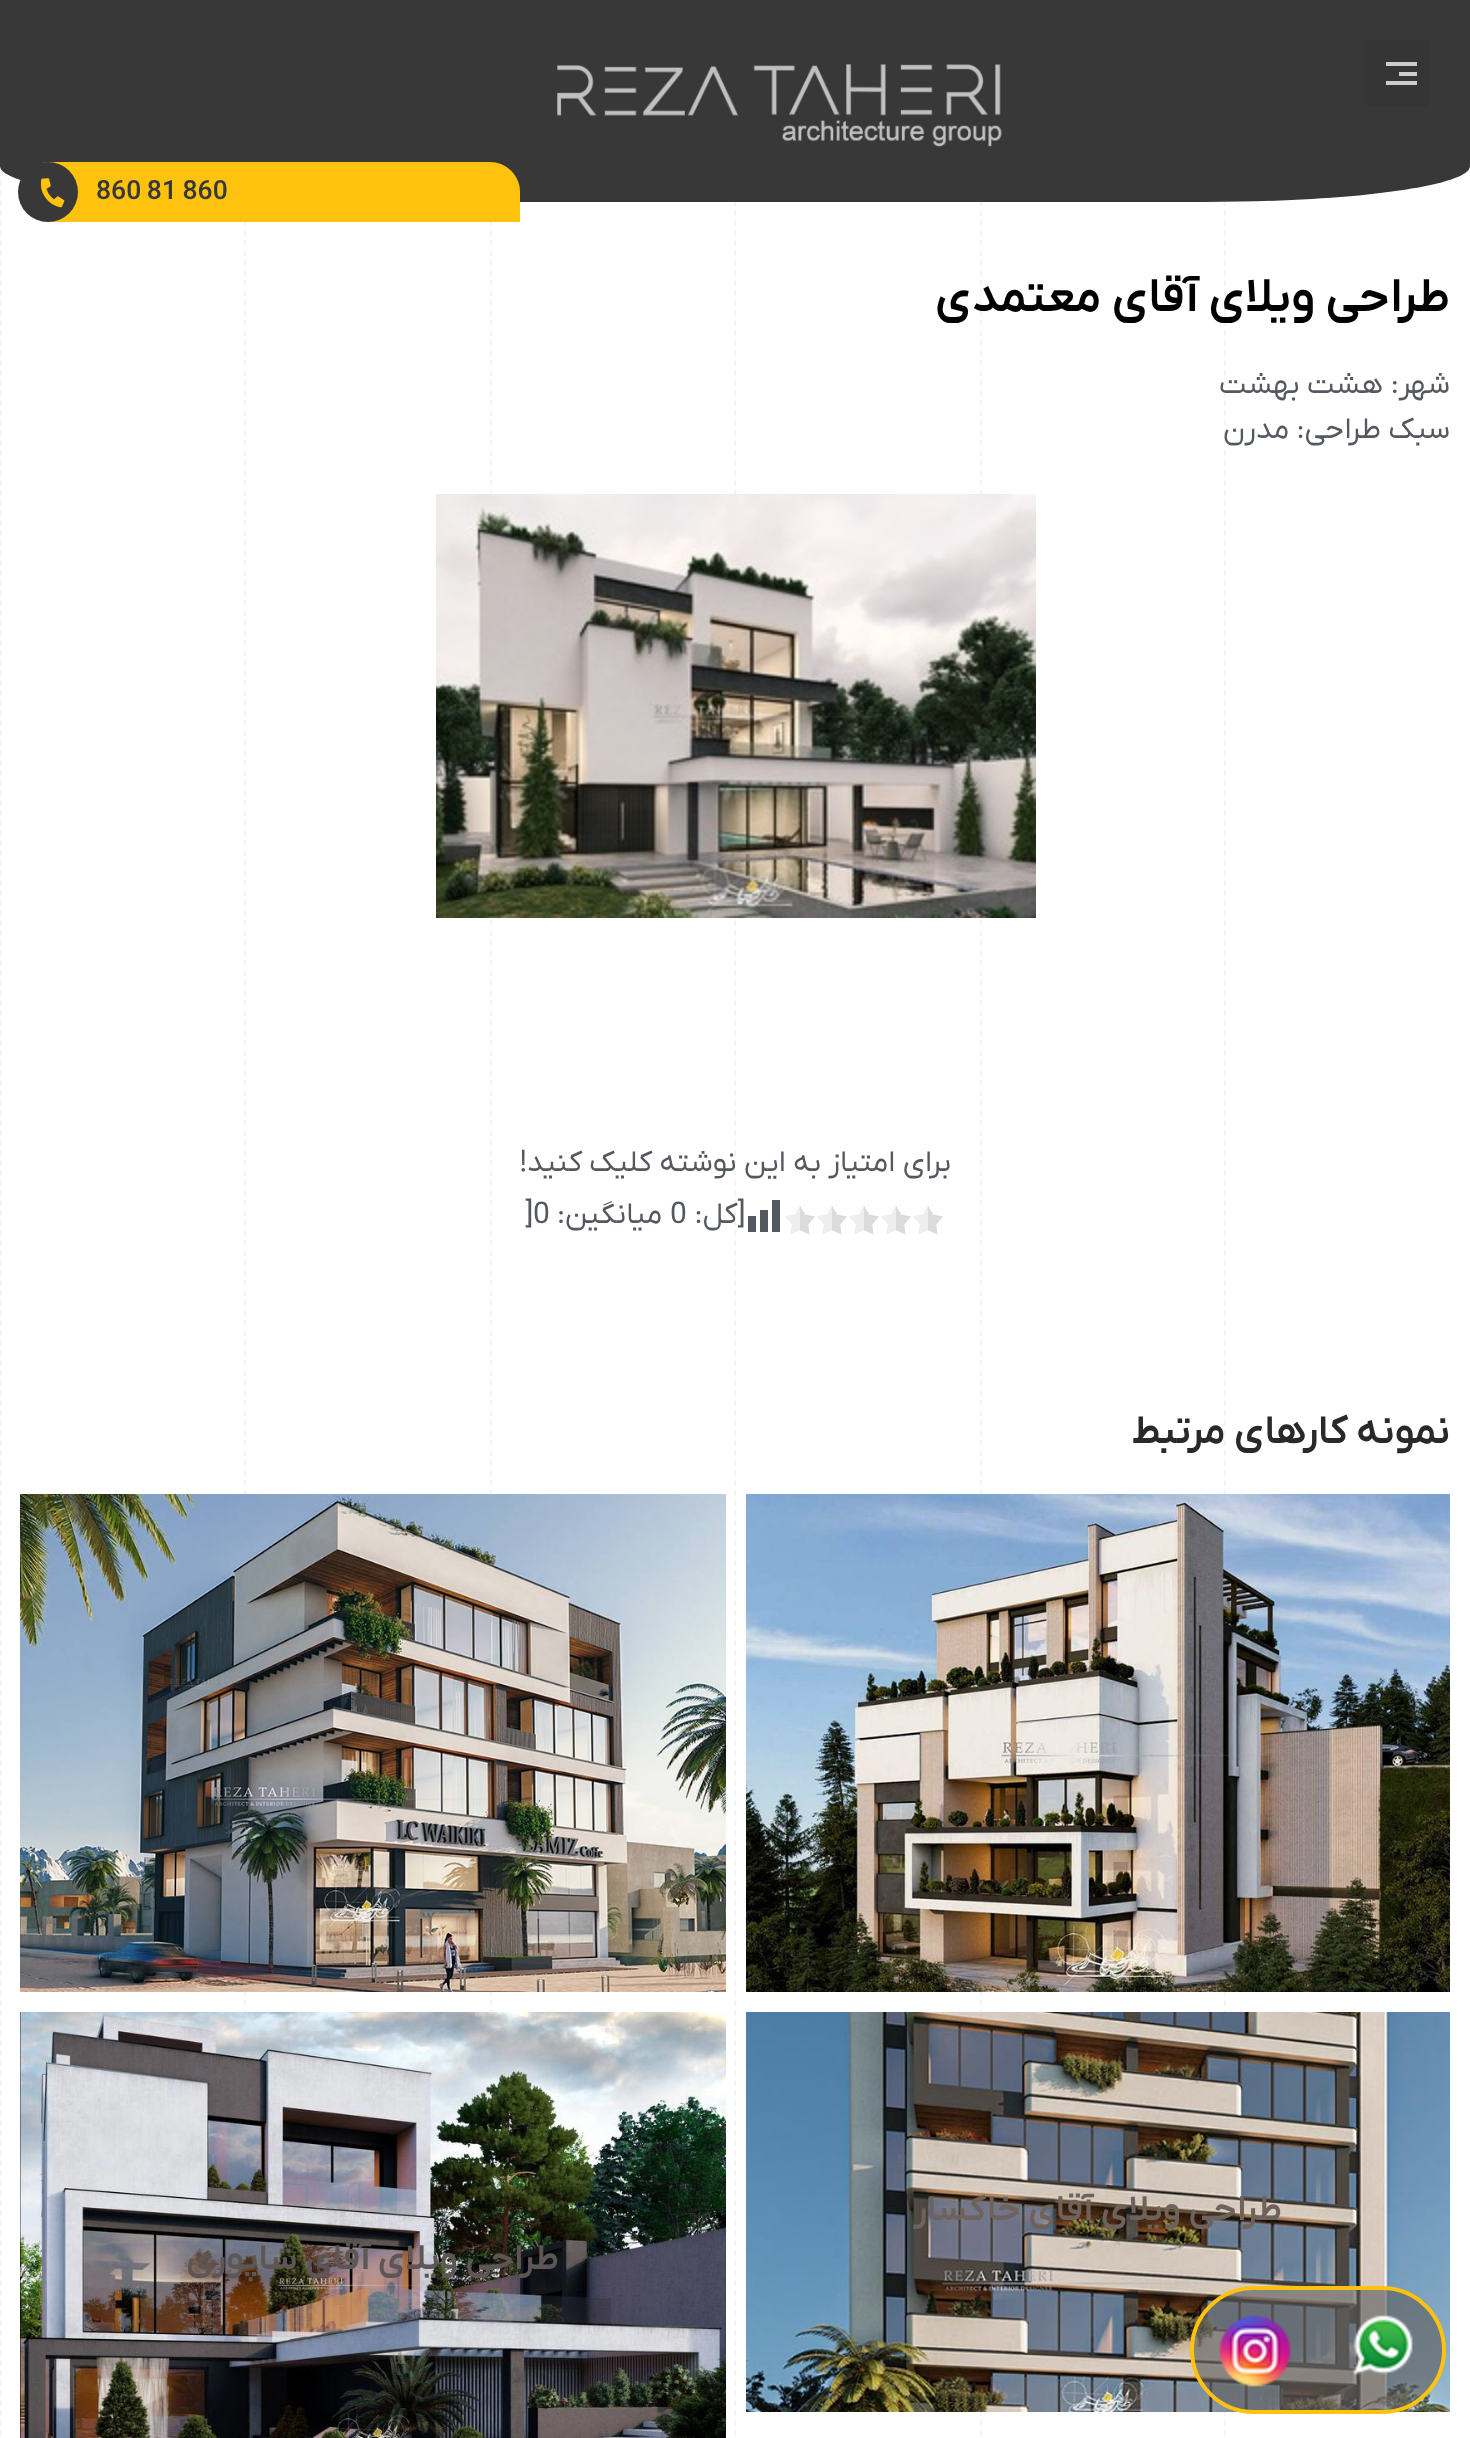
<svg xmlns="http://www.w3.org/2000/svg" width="1470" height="2438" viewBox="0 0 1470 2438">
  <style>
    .t1 { font: 600 26.5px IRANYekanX; fill: #383838; }
    .t2 { font: 600 48px IRANYekanX; direction: rtl; fill: #000; }
    .t3 { font: 30px IRANYekanX; direction: rtl; fill: #54595f; }
    .t4 { font: 30px IRANYekanX; fill: #54595f; }
    .t5 { font: 600 40px IRANYekanX; direction: rtl; fill: #292929; }
    .t6 { font: 600 36px IRANYekanX; direction: rtl; fill: #6d625c; }
    .t7 { font: 600 36px IRANYekanX; direction: rtl; fill: #5e5654; }
  </style>
  <rect width="100%" height="100%" fill="#fff"/>
  <path d="M1225 0V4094" fill="none" stroke="#f4f4f4" stroke-width="2" stroke-dasharray="6 4"/>
  <path d="M981 0V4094" fill="none" stroke="#f4f4f4" stroke-width="2" stroke-dasharray="6 4"/>
  <path d="M735 0V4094" fill="none" stroke="#f4f4f4" stroke-width="2" stroke-dasharray="6 4"/>
  <path d="M491 0V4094" fill="none" stroke="#f4f4f4" stroke-width="2" stroke-dasharray="6 4"/>
  <path d="M245 0V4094" fill="none" stroke="#f4f4f4" stroke-width="2" stroke-dasharray="6 4"/>
  <path d="M1 0V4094" fill="none" stroke="#f4f4f4" stroke-width="2" stroke-dasharray="6 4"/>
  <path d="M0 0H1470V166C1470 186 1352 202 1205 202H265C118 202 0 186 0 166Z" fill="#383838"/>
  <rect x="1364" y="40" width="66" height="66" rx="6" fill="#353535"/>
  <rect x="1386" y="62" width="31" height="4" fill="#cdcdcd"/>
  <rect x="1399" y="72" width="18" height="4" fill="#cdcdcd"/>
  <rect x="1386" y="81" width="31" height="4" fill="#cdcdcd"/>
  <image x="557" y="64" width="445" height="83" href="images/1.png"/>
  <path d="M50 162H490C506.5 162 520 175.5 520 192V222H50C33.5 222 20 208.5 20 192C20 175.5 33.5 162 50 162Z" fill="#ffc20e"/>
  <text x="96" y="199" class="t1">860 81 860</text>
  <circle cx="48" cy="192" r="30" fill="#383838"/>
  <image x="40" y="178" width="25" height="30" href="images/2.png"/>
  <text x="1450" y="311" class="t2">طراحی ویلای آقای معتمدی</text>
  <text x="1450" y="393" class="t3">شهر: هشت بهشت</text>
  <text x="1450" y="438" class="t3">سبک طراحی: مدرن</text>
  <image x="436" y="494" width="600" height="424" href="images/3.png"/>
  <text x="951" y="1171" class="t3">برای امتیاز به این نوشته کلیک کنید!</text>
  <image x="785" y="1206" width="158" height="29" href="images/4.png"/>
  <image x="748" y="1200" width="32" height="32" href="images/5.png"/>
  <text x="745" y="1223" class="t3">[کل:</text>
  <text x="670" y="1223" class="t4">0</text>
  <text x="662" y="1223" class="t3">میانگین:</text>
  <text x="533" y="1223" class="t4">0</text>
  <text x="525" y="1223" class="t4">]</text>
  <text x="1450" y="1443" class="t5">نمونه کارهای مرتبط</text>
  <image x="746" y="1494" width="704" height="498" href="images/6.png"/>
  <image x="20" y="1494" width="706" height="498" href="images/7.png"/>
  <image x="746" y="2012" width="704" height="400" href="images/8.png"/>
  <text x="1282" y="2220" class="t6">طراحی ویلای آقای خاکسار</text>
  <image x="20" y="2012" width="706" height="426" href="images/9.png"/>
  <text x="559" y="2269" class="t7">طراحی ویلای آقای شاپوری</text>
  <rect x="1192" y="2288" width="252" height="124" rx="62" fill="#616161a8" stroke="#ffc20e" stroke-width="4"/>
  <image x="1353" y="2315" width="60" height="60" href="images/10.png"/>
  <image x="1219" y="2315" width="72" height="72" href="images/11.png"/>
</svg>
